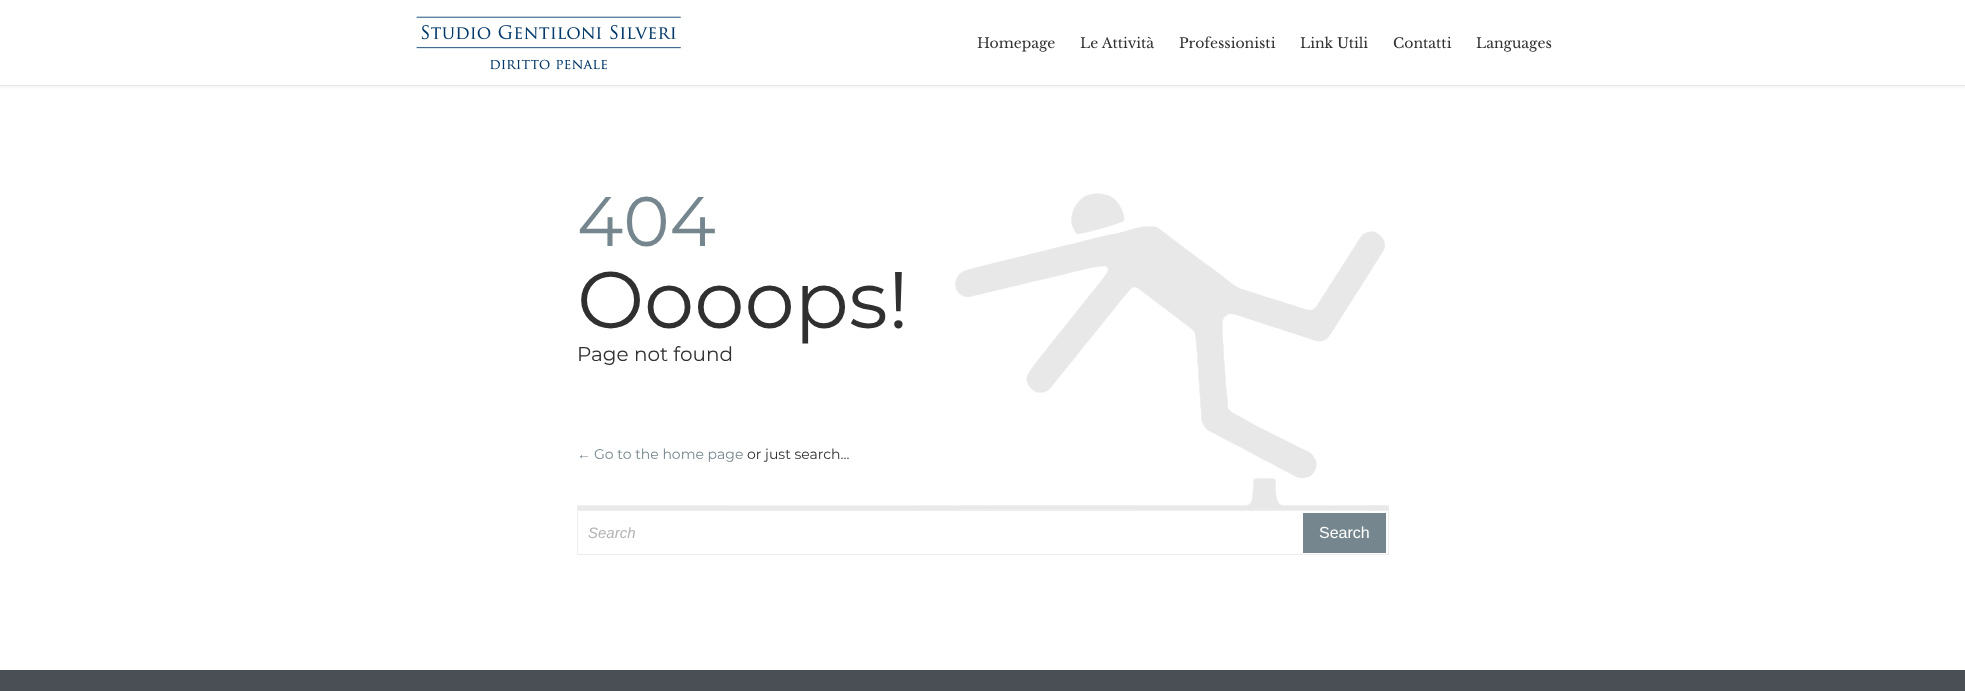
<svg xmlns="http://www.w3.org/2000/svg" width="1965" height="691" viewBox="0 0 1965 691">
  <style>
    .t1 { font: 14px Libre Baskerville; fill: #303030; }
    .t2 { font: 70px Montserrat; fill: #75868e; }
    .t3 { font: 80px Montserrat; fill: #303030; }
    .t4 { font: 20px Montserrat; fill: #303030; }
    .t5 { font: 14px Liberation Serif; fill: #75868e; }
    .t6 { font: 14px Montserrat; fill: #75868e; }
    .t7 { font: 14px Montserrat; fill: #303030; }
    .t8 { font: italic 15px Liberation Sans; fill: #b3b3b3; }
    .t9 { font: 16px Liberation Sans; fill: #fff; }
  </style>
  <rect width="100%" height="100%" fill="#fff"/>
  <rect x="0" y="2" width="1965" height="86" fill="#0000000a" filter="blur(1px)"/>
  <rect x="0" y="1" width="1965" height="84" fill="#fff"/>
  <rect x="0" y="85" width="1965" height="1" fill="#e8e8e8"/>
  <image x="416" y="16" width="265" height="54" href="images/1.png"/>
  <text x="977" y="48" class="t1">Homepage</text>
  <text x="1080" y="48" class="t1">Le Attività</text>
  <text x="1179" y="48" class="t1">Professionisti</text>
  <text x="1300" y="48" class="t1">Link Utili</text>
  <text x="1393" y="48" class="t1">Contatti</text>
  <text x="1476" y="48" class="t1">Languages</text>
  <image x="577" y="193" width="812" height="317" href="images/2.png"/>
  <text x="577" y="246" class="t2">404</text>
  <text x="577" y="328" class="t3">Oooops!</text>
  <text x="577" y="361" class="t4">Page not found</text>
  <text x="577" y="459" class="t5">←</text>
  <text x="594" y="459" class="t6">Go to the home page</text>
  <text x="747" y="459" class="t7">or just search...</text>
  <rect x="577.5" y="510.5" width="811" height="44" fill="none" stroke="#ededed"/>
  <text x="588" y="538" class="t8">Search</text>
  <rect x="1303" y="513" width="83" height="40" fill="#75868e"/>
  <text x="1319" y="538" class="t9">Search</text>
  <rect x="0" y="670" width="1965" height="21" fill="#4a4f55"/>
</svg>
